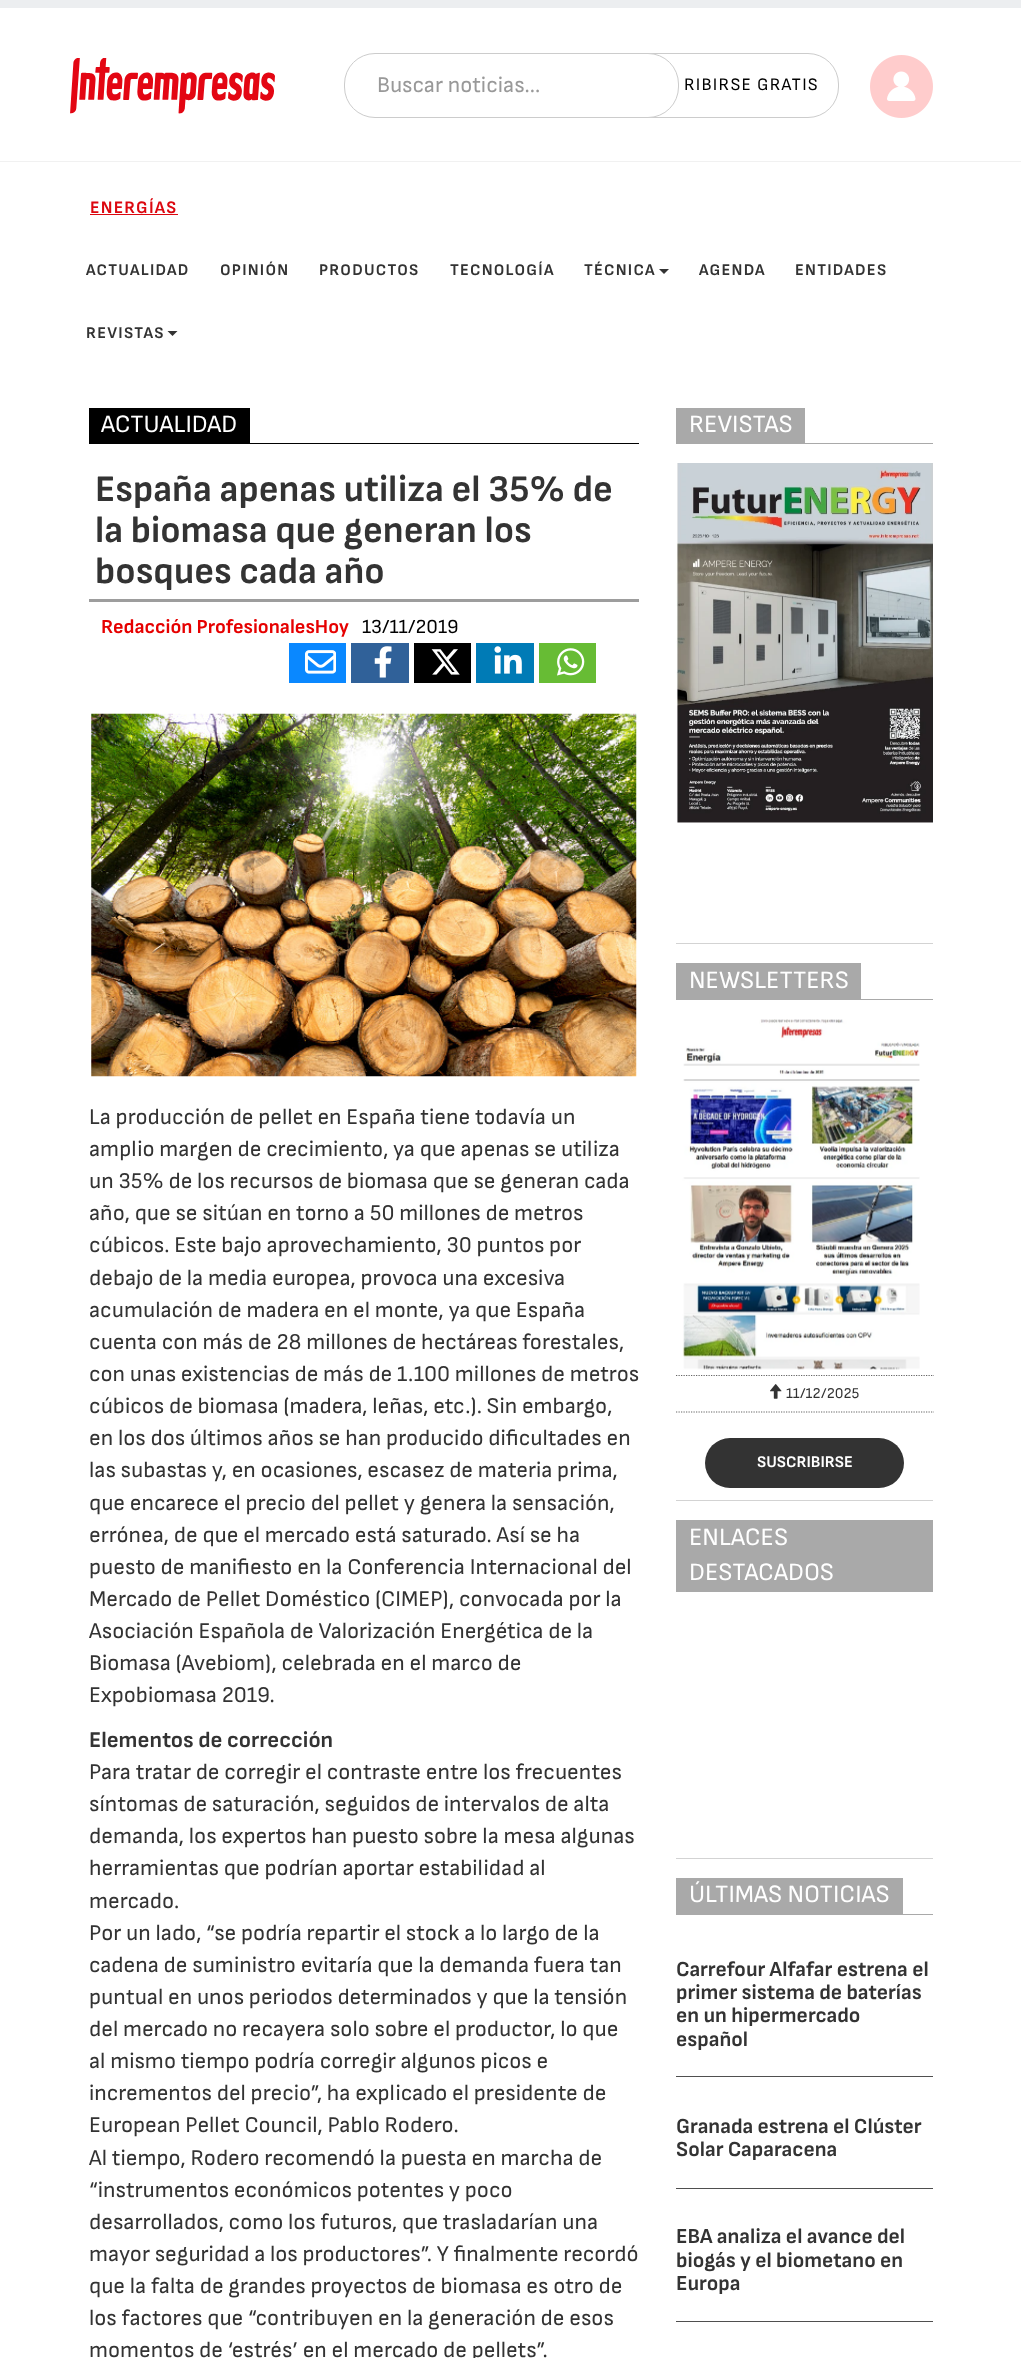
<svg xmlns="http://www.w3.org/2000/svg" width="1021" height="2358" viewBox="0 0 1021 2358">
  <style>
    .t1 { font: 22.5px Sofia Sans; fill: #999; }
    .t2 { font: 17.5px Sofia Sans; letter-spacing: 1.25px; fill: #000; }
    .t3 { font: bold 17.5px Sofia Sans; letter-spacing: 1.25px; fill: #dc070f; }
    .t4 { font: bold 16.25px Sofia Sans; letter-spacing: 1.25px; fill: #333; }
    .t5 { font: 25px Sofia Sans; fill: #fff; }
    .t6 { font: bold 37.5px Sofia Sans; fill: #333; }
    .t7 { font: bold 20px Sofia Sans; fill: #e60000; }
    .t8 { font: 20px Sofia Sans; fill: #000; }
    .t9 { font: 22.5px Sofia Sans; fill: #333; }
    .t10 { font: bold 22.5px Sofia Sans; fill: #333; }
    .t11 { font: 15px Sofia Sans; fill: #333; }
    .t12 { font: bold 16.25px Sofia Sans; fill: #fff; }
    .t13 { font: bold 21.25px Sofia Sans; fill: #333; }
  </style>
  <rect width="100%" height="100%" fill="#fff"/>
  <rect x="0" y="0" width="1021" height="8" fill="#eceef0"/>
  <image x="70" y="58" width="205" height="56" href="images/1.png"/>
  <rect x="616.5" y="53.5" width="222" height="64" rx="30.5" fill="none" stroke="#ccc"/>
  <rect x="344.5" y="53.5" width="334" height="64" rx="30.5" fill="#fff" stroke="#ccc"/>
  <text x="377" y="92" class="t1">Buscar noticias...</text>
  <text x="684" y="90" class="t2">RIBIRSE GRATIS</text>
  <image x="870" y="55" width="63" height="63" href="images/2.png"/>
  <rect x="0" y="161" width="1021" height="1" fill="#f1f1f1"/>
  <text x="90" y="213" class="t3">ENERGÍAS</text>
  <rect x="90" y="214" width="88" height="1" fill="#dc070f"/>
  <text x="86" y="275" class="t4">ACTUALIDAD</text>
  <text x="220" y="275" class="t4">OPINIÓN</text>
  <text x="319" y="275" class="t4">PRODUCTOS</text>
  <text x="450" y="275" class="t4">TECNOLOGÍA</text>
  <text x="584" y="275" class="t4">TÉCNICA</text>
  <path d="M659 269H669L664 274Z" fill="#333"/>
  <text x="699" y="275" class="t4">AGENDA</text>
  <text x="795" y="275" class="t4">ENTIDADES</text>
  <text x="86" y="338" class="t4">REVISTAS</text>
  <path d="M167.5 331H177.5L172.5 336Z" fill="#333"/>
  <rect x="89" y="408" width="161" height="35" fill="#000"/>
  <text x="101" y="432" class="t5">ACTUALIDAD</text>
  <rect x="89" y="443" width="550" height="1" fill="#000"/>
  <rect x="89" y="599" width="550" height="3" fill="#9d9d9d"/>
  <text x="95" y="501" class="t6">España apenas utiliza el 35% de</text>
  <text x="95" y="542" class="t6">la biomasa que generan los</text>
  <text x="95" y="583" class="t6">bosques cada año</text>
  <text x="101" y="633" class="t7">Redacción ProfesionalesHoy</text>
  <text x="362" y="633" class="t8">13/11/2019</text>
  <rect x="289" y="643" width="57" height="40" fill="#0a88ff"/>
  <image x="305" y="650" width="31" height="24" href="images/3.png"/>
  <rect x="351" y="643" width="58" height="40" fill="#306199"/>
  <image x="374" y="646" width="18" height="32" href="images/4.png"/>
  <rect x="414" y="643" width="57" height="40" fill="#000"/>
  <image x="431" y="649" width="29" height="26" href="images/5.png"/>
  <rect x="476" y="643" width="58" height="40" fill="#007bb6"/>
  <image x="494" y="646" width="28" height="28" href="images/6.png"/>
  <rect x="539" y="643" width="57" height="40" fill="#67bc34"/>
  <image x="557" y="648" width="28" height="28" href="images/7.png"/>
  <image x="91" y="713" width="546" height="364" href="images/8.png"/>
  <text x="89" y="1124" class="t9">La producción de pellet en España tiene todavía un</text>
  <text x="89" y="1156" class="t9">amplio margen de crecimiento, ya que apenas se utiliza</text>
  <text x="89" y="1188" class="t9">un 35% de los recursos de biomasa que se generan cada</text>
  <text x="89" y="1220" class="t9">año, que se sitúan en torno a 50 millones de metros</text>
  <text x="89" y="1252" class="t9">cúbicos. Este bajo aprovechamiento, 30 puntos por</text>
  <text x="89" y="1285" class="t9">debajo de la media europea, provoca una excesiva</text>
  <text x="89" y="1317" class="t9">acumulación de madera en el monte, ya que España</text>
  <text x="89" y="1349" class="t9">cuenta con más de 28 millones de hectáreas forestales,</text>
  <text x="89" y="1381" class="t9">con unas existencias de más de 1.100 millones de metros</text>
  <text x="89" y="1413" class="t9">cúbicos de biomasa (madera, leñas, etc.). Sin embargo,</text>
  <text x="89" y="1445" class="t9">en los dos últimos años se han producido dificultades en</text>
  <text x="89" y="1477" class="t9">las subastas y, en ocasiones, escasez de materia prima,</text>
  <text x="89" y="1510" class="t9">que encarece el precio del pellet y genera la sensación,</text>
  <text x="89" y="1542" class="t9">errónea, de que el mercado está saturado. Así se ha</text>
  <text x="89" y="1574" class="t9">puesto de manifiesto en la Conferencia Internacional del</text>
  <text x="89" y="1606" class="t9">Mercado de Pellet Doméstico (CIMEP), convocada por la</text>
  <text x="89" y="1638" class="t9">Asociación Española de Valorización Energética de la</text>
  <text x="89" y="1670" class="t9">Biomasa (Avebiom), celebrada en el marco de</text>
  <text x="89" y="1702" class="t9">Expobiomasa 2019.</text>
  <text x="89" y="1747" class="t10">Elementos de corrección</text>
  <text x="89" y="1779" class="t9">Para tratar de corregir el contraste entre los frecuentes</text>
  <text x="89" y="1811" class="t9">síntomas de saturación, seguidos de intervalos de alta</text>
  <text x="89" y="1843" class="t9">demanda, los expertos han puesto sobre la mesa algunas</text>
  <text x="89" y="1875" class="t9">herramientas que podrían aportar estabilidad al</text>
  <text x="89" y="1908" class="t9">mercado.</text>
  <text x="89" y="1940" class="t9">Por un lado, “se podría repartir el stock a lo largo de la</text>
  <text x="89" y="1972" class="t9">cadena de suministro evitaría que la demanda fuera tan</text>
  <text x="89" y="2004" class="t9">puntual en unos periodos determinados y que la tensión</text>
  <text x="89" y="2036" class="t9">del mercado no recayera solo sobre el productor, lo que</text>
  <text x="89" y="2068" class="t9">al mismo tiempo podría corregir algunos picos e</text>
  <text x="89" y="2100" class="t9">incrementos del precio”, ha explicado el presidente de</text>
  <text x="89" y="2132" class="t9">European Pellet Council, Pablo Rodero.</text>
  <text x="89" y="2165" class="t9">Al tiempo, Rodero recomendó la puesta en marcha de</text>
  <text x="89" y="2197" class="t9">“instrumentos económicos potentes y poco</text>
  <text x="89" y="2229" class="t9">desarrollados, como los futuros, que trasladarían una</text>
  <text x="89" y="2261" class="t9">mayor seguridad a los productores”. Y finalmente recordó</text>
  <text x="89" y="2293" class="t9">que la falta de grandes proyectos de biomasa es otro de</text>
  <text x="89" y="2325" class="t9">los factores que “contribuyen en la generación de esos</text>
  <text x="89" y="2357" class="t9">momentos de ‘estrés’ en el mercado de pellets”.</text>
  <rect x="676" y="408" width="129" height="35" fill="#a9a9a9"/>
  <text x="689" y="432" class="t5">REVISTAS</text>
  <rect x="676" y="443" width="257" height="1" fill="#a9a9a9"/>
  <image x="676" y="463" width="257" height="360" href="images/9.png"/>
  <rect x="676" y="943" width="257" height="1" fill="#d3d3d3"/>
  <rect x="676" y="963" width="185" height="36" fill="#a9a9a9"/>
  <text x="689" y="988" class="t5">NEWSLETTERS</text>
  <rect x="676" y="999" width="257" height="1" fill="#a9a9a9"/>
  <image x="682" y="1019" width="238" height="351" href="images/10.png"/>
  <path d="M676 1375.5H934" fill="none" stroke="#666" stroke-width="1.2" stroke-dasharray="1.25 1.25"/>
  <path d="M676 1412H934" fill="none" stroke="#666" stroke-width="1.2" stroke-dasharray="1.25 1.25"/>
  <image x="770" y="1384" width="12" height="15" href="images/11.png"/>
  <text x="786" y="1398" class="t11">11/12/2025</text>
  <rect x="705" y="1438" width="199" height="50" rx="25" fill="#333"/>
  <text x="757" y="1467" class="t12">SUSCRIBIRSE</text>
  <rect x="676" y="1500" width="257" height="1" fill="#d3d3d3"/>
  <rect x="676" y="1520" width="257" height="72" fill="#a9a9a9"/>
  <text x="689" y="1545" class="t5">ENLACES</text>
  <text x="689" y="1580" class="t5">DESTACADOS</text>
  <rect x="676" y="1858" width="257" height="1" fill="#d3d3d3"/>
  <rect x="676" y="1878" width="227" height="36" fill="#a9a9a9"/>
  <text x="689" y="1902" class="t5">ÚLTIMAS NOTICIAS</text>
  <rect x="676" y="1914" width="257" height="1" fill="#a9a9a9"/>
  <rect x="676" y="2076" width="257" height="1" fill="#4f4f4f"/>
  <text x="676" y="1976" class="t13">Carrefour Alfafar estrena el</text>
  <text x="676" y="1999" class="t13">primer sistema de baterías</text>
  <text x="676" y="2022" class="t13">en un hipermercado</text>
  <text x="676" y="2046" class="t13">español</text>
  <rect x="676" y="2188" width="257" height="1" fill="#4f4f4f"/>
  <text x="676" y="2133" class="t13">Granada estrena el Clúster</text>
  <text x="676" y="2156" class="t13">Solar Caparacena</text>
  <rect x="676" y="2321" width="257" height="1" fill="#4f4f4f"/>
  <text x="676" y="2243" class="t13">EBA analiza el avance del</text>
  <text x="676" y="2267" class="t13">biogás y el biometano en</text>
  <text x="676" y="2290" class="t13">Europa</text>
</svg>
